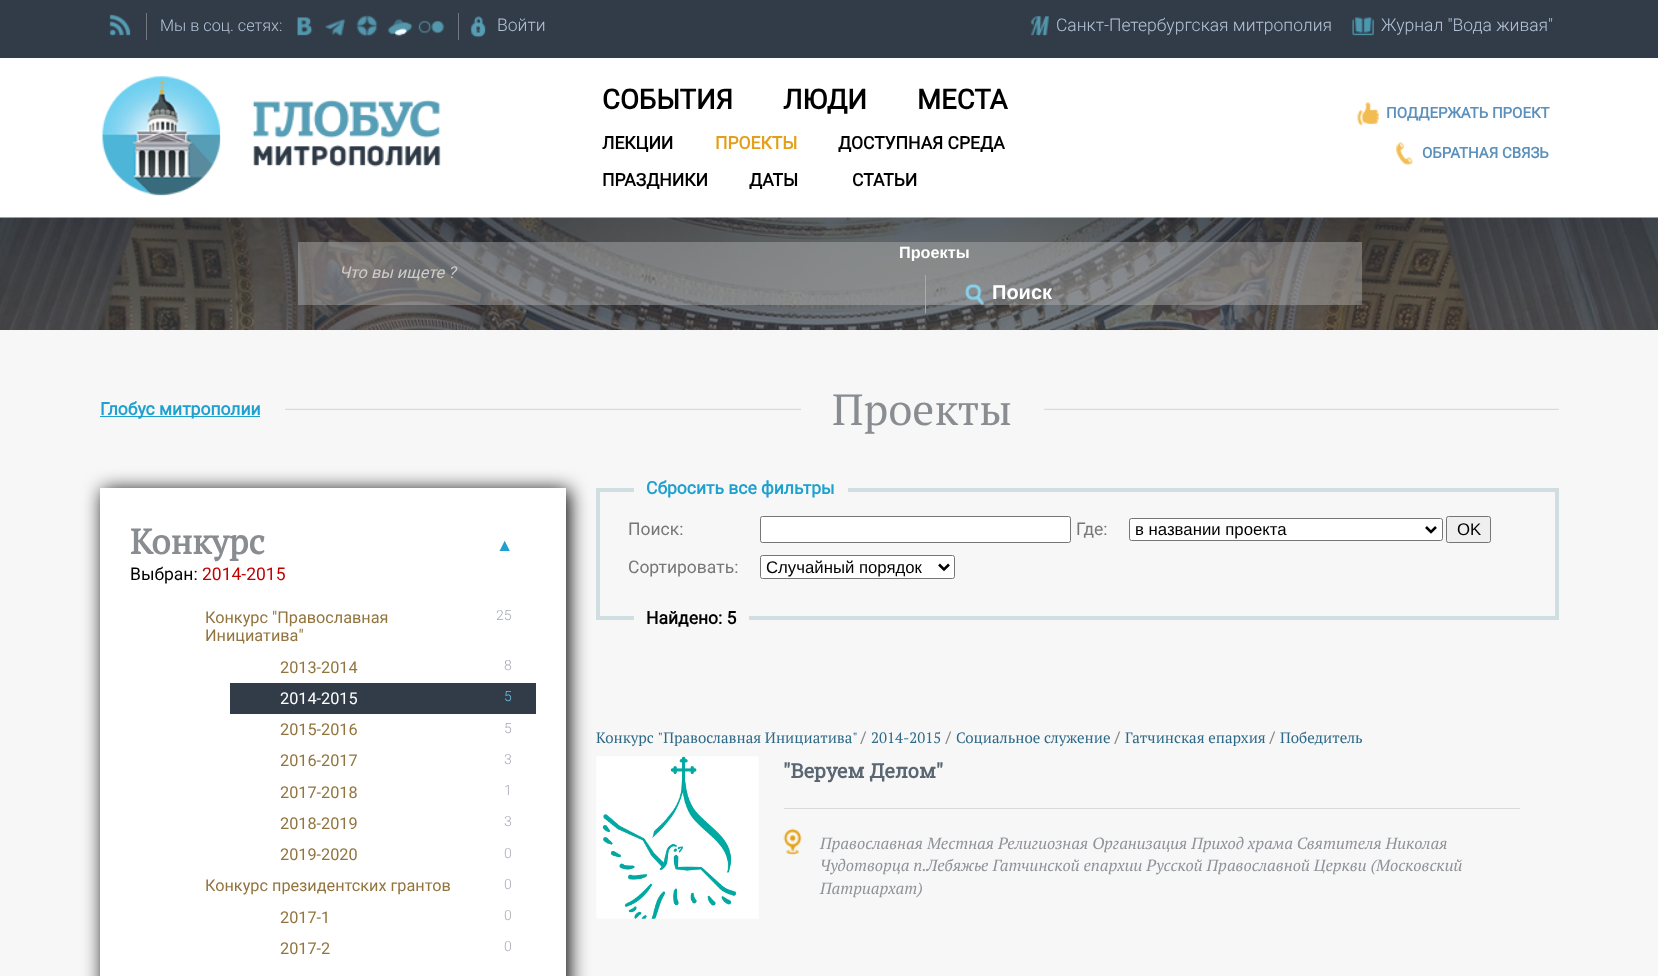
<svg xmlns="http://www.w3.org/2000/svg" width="1658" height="976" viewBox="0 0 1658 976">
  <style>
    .t1 { font: 300 16.25px Roboto; fill: #b3c3d6; }
    .t2 { font: 300 17.5px Roboto; fill: #b3c3d6; }
    .t3 { font: bold 27.5px Roboto; fill: #000; }
    .t4 { font: bold 17.5px Roboto; fill: #000; }
    .t5 { font: bold 17.5px Roboto; fill: #e49f1a; }
    .t6 { font: bold 15px Roboto; fill: #5a90bb; }
    .t7 { font: bold 16.25px Liberation Sans; fill: #fff; }
    .t8 { font: italic 16.25px Roboto; fill: #ccc; }
    .t9 { font: bold 20px Liberation Sans; fill: #fff; }
    .t10 { font: bold 17.5px Roboto; fill: #1ea1ce; }
    .t11 { font: 43.75px PT Serif; fill: #898d92; }
    .t12 { font: bold 35px PT Serif; fill: #898d92; }
    .t13 { font: bold 17.5px Liberation Sans; fill: #1ea1ce; }
    .t14 { font: 17.5px Roboto; fill: #000; }
    .t15 { font: 17.5px Roboto; fill: #c10000; }
    .t16 { font: 16.25px Roboto; fill: #92753e; }
    .t17 { font: 300 14px 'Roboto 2'; fill: #a5aab2; }
    .t18 { font: 16.25px Roboto; fill: #fff; }
    .t19 { font: 300 14px 'Roboto 2'; fill: #6bc2e2; }
    .t20 { font: 17.5px Roboto; fill: #777; }
    .t21 { font: 16.75px Liberation Sans; fill: #000; }
    .t22 { font: 15px PT Serif; fill: #2d6a87; }
    .t23 { font: 16.25px Roboto; fill: #888; }
    .t24 { font: bold 20px Roboto Slab; fill: #5a6773; }
    .t25 { font: italic 16.25px PT Serif; fill: #8f9398; }
  </style>
  <defs>
    <clipPath id="clip1"><rect x="900" y="243" width="188" height="18"/></clipPath>
  </defs>
  <rect width="100%" height="100%" fill="#fff"/>
  <rect x="0" y="0" width="1658" height="58" fill="#323c48"/>
  <image x="109" y="14" width="22" height="22" href="images/1.png"/>
  <rect x="146" y="13" width="1" height="27" fill="#757580"/>
  <text x="160" y="31" class="t1">Мы в соц. сетях:</text>
  <image x="297" y="17" width="16" height="19" href="images/2.png"/>
  <image x="325" y="18" width="21" height="19" href="images/3.png"/>
  <image x="356" y="15" width="22" height="22" href="images/4.png"/>
  <image x="387" y="18" width="26" height="19" href="images/5.png"/>
  <image x="418" y="20" width="26" height="14" href="images/6.png"/>
  <rect x="458" y="13" width="1" height="27" fill="#757580"/>
  <image x="470" y="16" width="16" height="22" href="images/7.png"/>
  <text x="497" y="31" class="t2">Войти</text>
  <image x="1031" y="16" width="18" height="20" href="images/8.png"/>
  <text x="1056" y="31" class="t2">Санкт-Петербургская митрополия</text>
  <image x="1352" y="17" width="22" height="19" href="images/9.png"/>
  <text x="1381" y="31" class="t2">Журнал "Вода живая"</text>
  <image x="102" y="76" width="339" height="120" href="images/10.png"/>
  <text x="602" y="109" class="t3">СОБЫТИЯ</text>
  <text x="783" y="109" class="t3">ЛЮДИ</text>
  <text x="917" y="109" class="t3">МЕСТА</text>
  <text x="602" y="149" class="t4">ЛЕКЦИИ</text>
  <text x="715" y="149" class="t5">ПРОЕКТЫ</text>
  <text x="838" y="149" class="t4">ДОСТУПНАЯ СРЕДА</text>
  <text x="602" y="186" class="t4">ПРАЗДНИКИ</text>
  <text x="749" y="186" class="t4">ДАТЫ</text>
  <text x="852" y="186" class="t4">СТАТЬИ</text>
  <image x="1357" y="102" width="22" height="24" href="images/11.png"/>
  <text x="1386" y="118" class="t6">ПОДДЕРЖАТЬ ПРОЕКТ</text>
  <image x="1396" y="142" width="17" height="24" href="images/12.png"/>
  <text x="1422" y="158" class="t6">ОБРАТНАЯ СВЯЗЬ</text>
  <image x="0" y="217" width="1658" height="113" href="images/13.png"/>
  <rect x="298" y="242" width="1064" height="63" fill="#b6b6b66e"/>
  <g clip-path="url(#clip1)">
    <text x="899" y="258" class="t7">Проекты</text>
  </g>
  <text x="339" y="278" class="t8">Что вы ищете ?</text>
  <rect x="925" y="275" width="1" height="38" fill="#aaa"/>
  <image x="965" y="283" width="19" height="23" href="images/14.png"/>
  <text x="992" y="299" class="t9">Поиск</text>
  <rect x="0" y="330" width="1658" height="646" fill="#f7f7f7"/>
  <rect x="100" y="416" width="160" height="1" fill="#1ea1ce"/>
  <text x="100" y="415" class="t10">Глобус митрополии</text>
  <image x="285" y="408" width="1274" height="2" href="images/15.png"/>
  <rect x="801" y="408" width="243" height="2" fill="#f7f7f7"/>
  <text x="832" y="425" class="t11">Проекты</text>
  <rect x="103" y="490" width="466" height="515" fill="#000" filter="blur(9.5px)"/>
  <rect x="100" y="488" width="466" height="488" fill="#fff"/>
  <text x="130" y="554" class="t12">Конкурс</text>
  <text x="496" y="551" class="t13">▲</text>
  <text x="130" y="580" class="t14">Выбран:</text>
  <text x="202" y="580" class="t15">2014-2015</text>
  <text x="205" y="623" class="t16">Конкурс "Православная</text>
  <text x="205" y="641" class="t16">Инициатива"</text>
  <text x="496" y="620" class="t17">25</text>
  <text x="280" y="673" class="t16">2013-2014</text>
  <text x="504" y="670" class="t17">8</text>
  <rect x="230" y="683" width="306" height="31" fill="#323c48"/>
  <text x="280" y="704" class="t18">2014-2015</text>
  <text x="504" y="701" class="t19">5</text>
  <text x="280" y="735" class="t16">2015-2016</text>
  <text x="504" y="733" class="t17">5</text>
  <text x="280" y="766" class="t16">2016-2017</text>
  <text x="504" y="764" class="t17">3</text>
  <text x="280" y="798" class="t16">2017-2018</text>
  <text x="504" y="795" class="t17">1</text>
  <text x="280" y="829" class="t16">2018-2019</text>
  <text x="504" y="826" class="t17">3</text>
  <text x="280" y="860" class="t16">2019-2020</text>
  <text x="504" y="858" class="t17">0</text>
  <text x="205" y="891" class="t16">Конкурс президентских грантов</text>
  <text x="504" y="889" class="t17">0</text>
  <text x="280" y="923" class="t16">2017-1</text>
  <text x="504" y="920" class="t17">0</text>
  <text x="280" y="954" class="t16">2017-2</text>
  <text x="504" y="951" class="t17">0</text>
  <rect x="598" y="490" width="959" height="128" fill="none" stroke="#d0dde1" stroke-width="4"/>
  <rect x="634" y="488" width="214" height="4" fill="#f7f7f7"/>
  <text x="646" y="494" class="t10">Сбросить все фильтры</text>
  <text x="628" y="535" class="t20">Поиск:</text>
  <rect x="760.5" y="516.5" width="310" height="26" rx="2" fill="#fff" stroke="#767676"/>
  <text x="1076" y="535" class="t20">Где:</text>
  <rect x="1129.5" y="518.5" width="313" height="22" rx="2" fill="#fff" stroke="#767676"/>
  <path d="M1426 527L1431 532L1436 527" fill="none" stroke="#000" stroke-width="2.5"/>
  <text x="1135" y="535" class="t21">в названии проекта</text>
  <rect x="1446.5" y="516.5" width="44" height="26" rx="2" fill="#efefef" stroke="#767676"/>
  <text x="1457" y="535" class="t21">OK</text>
  <text x="628" y="573" class="t20">Сортировать:</text>
  <rect x="760.5" y="555.5" width="194" height="23" rx="2" fill="#fff" stroke="#767676"/>
  <path d="M939 564.5L944 569.5L949 564.5" fill="none" stroke="#000" stroke-width="2.5"/>
  <text x="766" y="573" class="t21">Случайный порядок</text>
  <rect x="634" y="616" width="115" height="4" fill="#f7f7f7"/>
  <text x="646" y="624" class="t4">Найдено: 5</text>
  <text x="596" y="743" class="t22">Конкурс "Православная Инициатива"</text>
  <text x="860" y="743" class="t23">/</text>
  <text x="871" y="743" class="t22">2014-2015</text>
  <text x="945" y="743" class="t23">/</text>
  <text x="956" y="743" class="t22">Социальное служение</text>
  <text x="1114" y="743" class="t23">/</text>
  <text x="1125" y="743" class="t22">Гатчинская епархия</text>
  <text x="1269" y="743" class="t23">/</text>
  <text x="1280" y="743" class="t22">Победитель</text>
  <image x="596" y="756" width="163" height="163" href="images/16.png"/>
  <text x="783" y="778" class="t24">"Веруем Делом"</text>
  <rect x="784" y="808" width="736" height="1" fill="#d8dadd"/>
  <image x="783" y="828" width="19" height="27" href="images/17.png"/>
  <text x="820" y="849" class="t25">Православная Местная Религиозная Организация Приход храма Святителя Николая</text>
  <text x="820" y="871" class="t25">Чудотворца п.Лебяжье Гатчинской епархии Русской Православной Церкви (Московский</text>
  <text x="820" y="894" class="t25">Патриархат)</text>
</svg>
